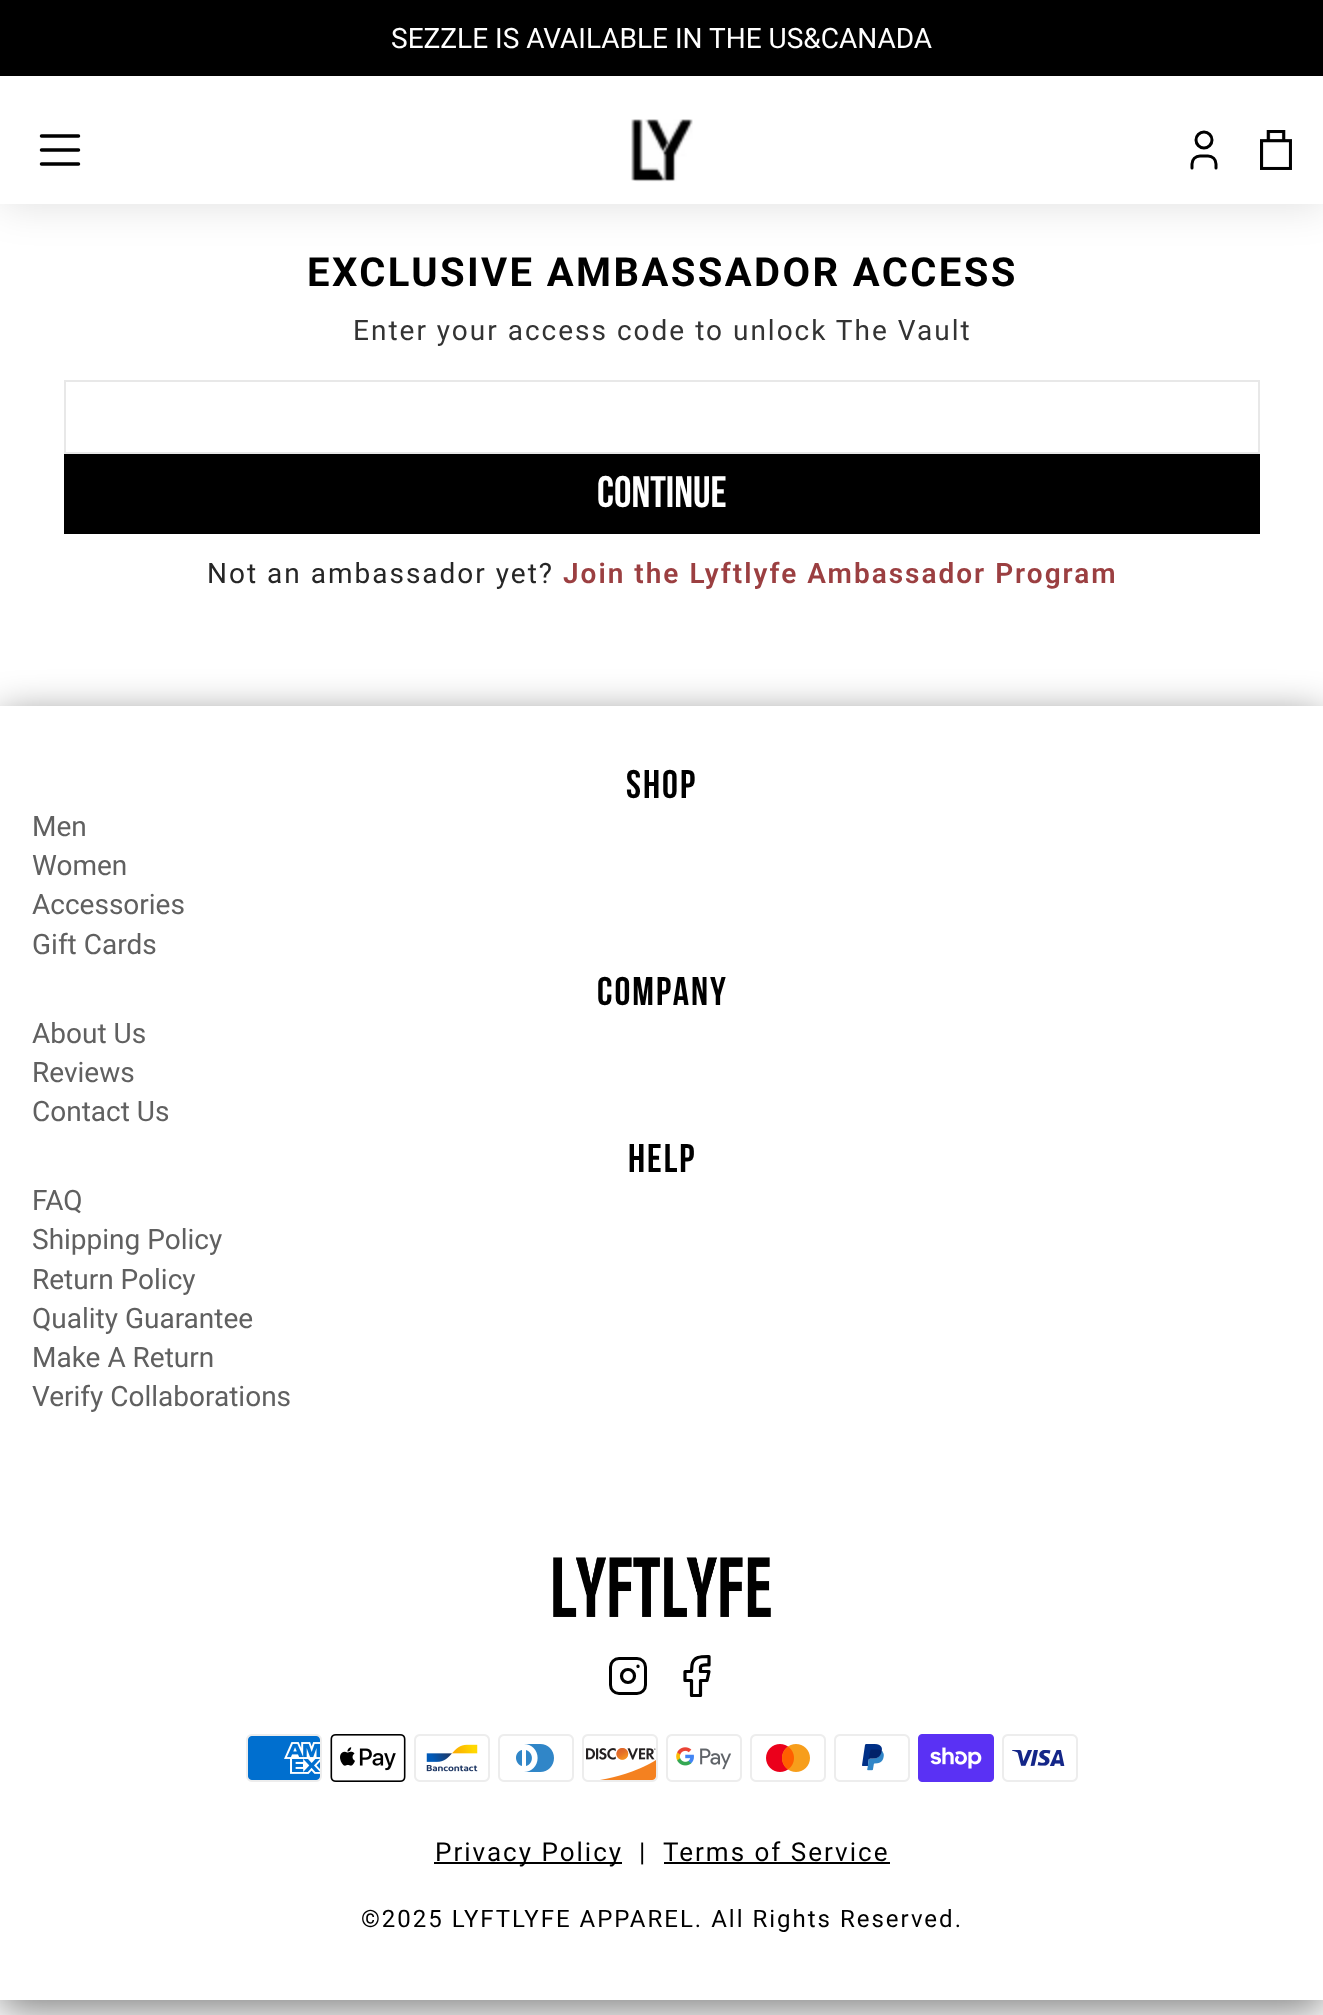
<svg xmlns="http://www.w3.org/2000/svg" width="1323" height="2015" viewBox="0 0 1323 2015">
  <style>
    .t1 { font: 28px Roboto; fill: #fff; }
    .t2 { font: bold 40px Roboto; letter-spacing: 2.4px; fill: #000; }
    .t3 { font: 28px Roboto; letter-spacing: 2px; fill: #333; }
    .t4 { font: bold 44px Bebas Neue; fill: #fff; }
    .t5 { font: 28px Roboto; letter-spacing: 2px; fill: #262626; }
    .t6 { font: 600 28px Roboto; letter-spacing: 2px; fill: #9b3f41; }
    .t7 { font: bold 40px Bebas Neue; letter-spacing: 2px; fill: #000; }
    .t8 { font: 28px Roboto; fill: #606060; }
    .t9 { font: 26px Roboto; letter-spacing: 2px; fill: #000; }
    .t10 { font: 24px Roboto; letter-spacing: 2px; fill: #000; }
  </style>
  <defs>
    <clipPath id="clip1"><path d="M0 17H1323V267H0ZM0 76H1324V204H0Z" clip-rule="evenodd"/></clipPath>
    <clipPath id="clip2"><path d="M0 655H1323V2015H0ZM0 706H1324V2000H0Z" clip-rule="evenodd"/></clipPath>
  </defs>
  <rect width="100%" height="100%" fill="#fff"/>
  <rect x="0" y="0" width="1323" height="76" fill="#000"/>
  <g clip-path="url(#clip1)">
    <rect x="2" y="78" width="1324" height="128" fill="#0000001f" filter="blur(20px)"/>
  </g>
  <path d="M41.5 136H78.5M41.5 150H78.5M41.5 164H78.5" fill="none" stroke="#000" stroke-width="3.5" stroke-linecap="round" stroke-linejoin="round"/>
  <image x="631" y="119" width="62" height="63" href="images/1.png"/>
  <circle cx="1204" cy="140" r="8" fill="none" stroke="#000" stroke-width="3"/>
  <path d="M1192 168V164C1192 159.5 1195.5 156 1200 156H1208C1212.5 156 1216 159.5 1216 164V168" fill="none" stroke="#000" stroke-width="3" stroke-linecap="round" stroke-linejoin="round"/>
  <image x="1260" y="130" width="32" height="40" href="images/2.png"/>
  <text x="391" y="48" class="t1">SEZZLE IS AVAILABLE IN THE US&amp;CANADA</text>
  <text x="307" y="286" class="t2">EXCLUSIVE AMBASSADOR ACCESS</text>
  <text x="353" y="340" class="t3">Enter your access code to unlock The Vault</text>
  <rect x="65" y="381" width="1194" height="72" fill="none" stroke="#e8e8e8" stroke-width="2"/>
  <rect x="64" y="454" width="1196" height="80" fill="#000"/>
  <text x="597" y="507" class="t4">CONTINUE</text>
  <text x="207" y="583" class="t5">Not an ambassador yet?</text>
  <text x="563" y="583" class="t6">Join the Lyftlyfe Ambassador Program</text>
  <g clip-path="url(#clip2)">
    <rect x="0" y="716" width="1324" height="1294" fill="#00000080" filter="blur(20px)"/>
  </g>
  <text x="626" y="798" class="t7">SHOP</text>
  <text x="32" y="836" class="t8">Men</text>
  <text x="32" y="875" class="t8">Women</text>
  <text x="32" y="914" class="t8">Accessories</text>
  <text x="32" y="954" class="t8">Gift Cards</text>
  <text x="597" y="1005" class="t7">COMPANY</text>
  <text x="32" y="1043" class="t8">About Us</text>
  <text x="32" y="1082" class="t8">Reviews</text>
  <text x="32" y="1121" class="t8">Contact Us</text>
  <text x="628" y="1172" class="t7">HELP</text>
  <text x="32" y="1210" class="t8">FAQ</text>
  <text x="32" y="1249" class="t8">Shipping Policy</text>
  <text x="32" y="1289" class="t8">Return Policy</text>
  <text x="32" y="1328" class="t8">Quality Guarantee</text>
  <text x="32" y="1367" class="t8">Make A Return</text>
  <text x="32" y="1406" class="t8">Verify Collaborations</text>
  <image x="553" y="1557" width="218" height="60" href="images/3.png"/>
  <rect x="610.5" y="1658.5" width="35" height="35" rx="8.5" fill="none" stroke="#000" stroke-width="3"/>
  <circle cx="628" cy="1676" r="6.5" fill="none" stroke="#000" stroke-width="3.2"/>
  <path d="M638 1666V1666.5" fill="none" stroke="#000" stroke-width="3.2" stroke-linecap="round" stroke-linejoin="round"/>
  <path d="M685 1671.5V1680.5H691.5V1695.5H700.5V1680.5H707L709 1671.5H700.5V1667C701 1664 707 1665 709 1665V1656.5C702 1656.5 693.5 1656 692 1665L691.5 1671.5H685" fill="none" stroke="#000" stroke-width="3.2" stroke-linecap="round" stroke-linejoin="round"/>
  <image x="246" y="1734" width="76" height="48" href="images/4.png"/>
  <image x="330" y="1734" width="76" height="48" href="images/5.png"/>
  <image x="414" y="1734" width="76" height="48" href="images/6.png"/>
  <image x="498" y="1734" width="76" height="48" href="images/7.png"/>
  <image x="582" y="1734" width="76" height="48" href="images/8.png"/>
  <image x="666" y="1734" width="76" height="48" href="images/9.png"/>
  <image x="750" y="1734" width="76" height="48" href="images/10.png"/>
  <image x="834" y="1734" width="76" height="48" href="images/11.png"/>
  <image x="918" y="1734" width="76" height="48" href="images/12.png"/>
  <image x="1002" y="1734" width="76" height="48" href="images/13.png"/>
  <rect x="434" y="1862" width="188" height="2" fill="#000"/>
  <text x="435" y="1861" class="t9">Privacy Policy</text>
  <text x="639" y="1861" class="t9">|</text>
  <text x="663" y="1861" class="t9">Terms of Service</text>
  <rect x="664" y="1862" width="226" height="2" fill="#000"/>
  <text x="361" y="1927" class="t10">©2025 LYFTLYFE APPAREL. All Rights Reserved.</text>
</svg>
